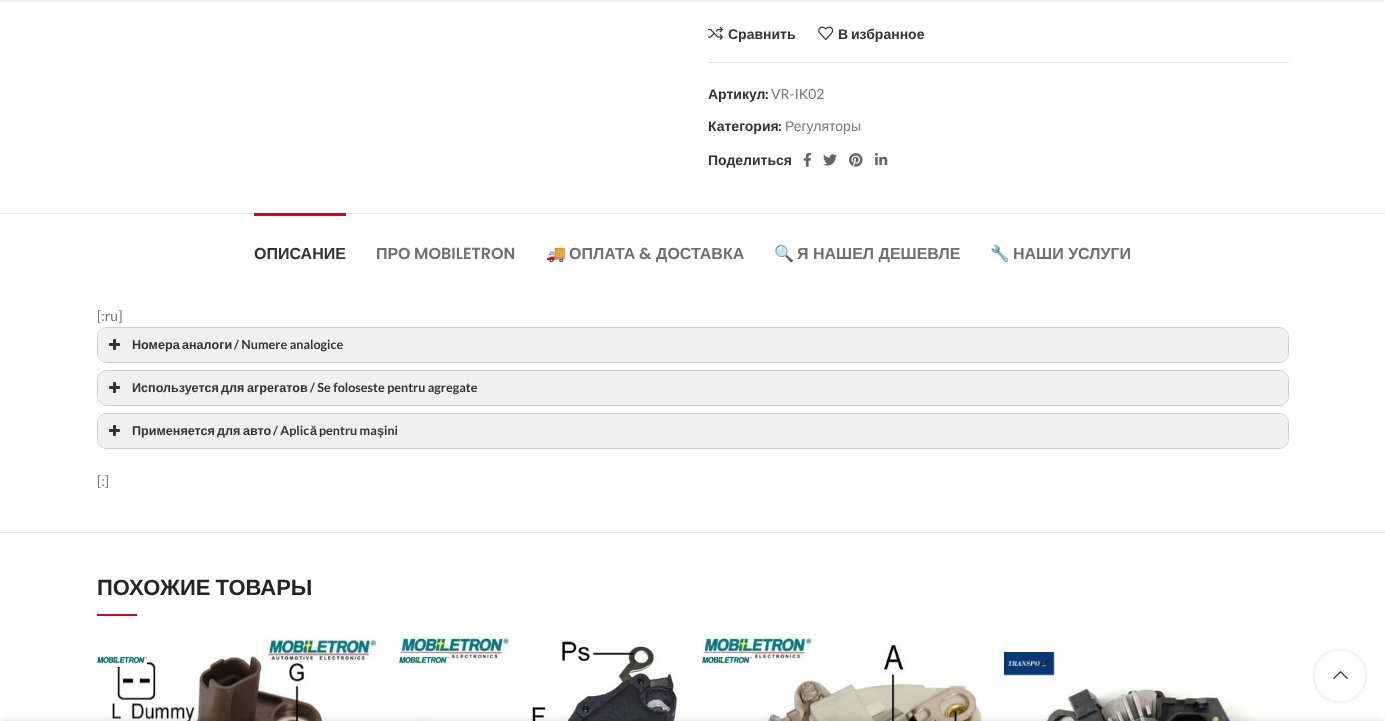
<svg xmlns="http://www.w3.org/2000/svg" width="1385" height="721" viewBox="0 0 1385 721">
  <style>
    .t1 { font: bold 14px Liberation Sans; fill: #333; }
    .t2 { font: bold 14px Lato; fill: #333; }
    .t3 { font: 14px Lato; fill: #777; }
    .t4 { font: 14px Liberation Sans; fill: #777; }
    .t5 { font: bold 16px Liberation Sans; fill: #333; }
    .t6 { font: bold 16px Liberation Sans; fill: #707070; }
    .t7 { font: 600 16px Poppins; fill: #707070; }
    .t8 { font: bold 16px Noto Color Emoji; fill: #707070; }
    .t9 { font: bold 12.6px Liberation Sans; fill: #333; }
    .t10 { font: bold 12.6px Lato; fill: #333; }
    .t11 { font: bold 22px Liberation Sans; fill: #242424; }
  </style>
  <defs>
    <clipPath id="clip1"><path d="M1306 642H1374V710H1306ZM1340 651C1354 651 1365 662 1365 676C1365 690 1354 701 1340 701C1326 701 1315 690 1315 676C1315 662 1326 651 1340 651Z" clip-rule="evenodd"/></clipPath>
  </defs>
  <rect width="100%" height="100%" fill="#fff"/>
  <rect x="0" y="-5" width="1385" height="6" fill="#0000001a" filter="blur(1.5px)"/>
  <image x="708" y="26" width="15" height="14" href="images/1.png"/>
  <text x="728" y="39" class="t1">Сравнить</text>
  <image x="818" y="26" width="16" height="14" href="images/2.png"/>
  <text x="838" y="39" word-spacing="-1" class="t1">В избранное</text>
  <rect x="708" y="62" width="581" height="1" fill="#e4e4e4"/>
  <text x="708" y="99" class="t1">Артикул</text>
  <text x="765" y="99" class="t2">:</text>
  <text x="771" y="99" class="t3">VR-IK02</text>
  <text x="708" y="131" class="t1">Категория</text>
  <text x="778" y="131" class="t2">:</text>
  <text x="785" y="131" class="t4">Регуляторы</text>
  <text x="708" y="165" class="t1">Поделиться</text>
  <image x="803" y="152" width="9" height="15" href="images/3.png"/>
  <image x="823" y="154" width="14" height="12" href="images/4.png"/>
  <image x="849" y="153" width="14" height="14" href="images/5.png"/>
  <image x="875" y="152" width="13" height="14" href="images/6.png"/>
  <rect x="0" y="213" width="1385" height="1" fill="#e4e4e4"/>
  <rect x="0" y="532" width="1385" height="1" fill="#e4e4e4"/>
  <rect x="254" y="213" width="92" height="3" fill="#cb091f"/>
  <text x="254" y="259" class="t5">ОПИСАНИЕ</text>
  <text x="376" y="259" class="t6">ПРО</text>
  <text x="414" y="259" class="t7">MOBILETRON</text>
  <text x="546" y="259" class="t8">🚚</text>
  <text x="569" y="259" class="t6">ОПЛАТА</text>
  <text x="639" y="259" class="t7">&amp;</text>
  <text x="656" y="259" class="t6">ДОСТАВКА</text>
  <text x="774" y="259" class="t8">🔍</text>
  <text x="797" y="259" class="t6">Я НАШЕЛ ДЕШЕВЛЕ</text>
  <text x="990" y="259" class="t8">🔧</text>
  <text x="1013" y="259" class="t6">НАШИ УСЛУГИ</text>
  <text x="97" y="321" class="t3">[:ru]</text>
  <rect x="97.5" y="327.5" width="1191" height="35" rx="9.5" fill="none" stroke="#ccc"/>
  <rect x="98" y="328" width="1190" height="34" rx="10" fill="#f0f0f0"/>
  <image x="109" y="339" width="11" height="11" href="images/7.png"/>
  <text x="132" y="349" class="t9">Номера</text>
  <text x="182" y="349" class="t9">аналоги</text>
  <text x="234" y="349" class="t10">/ Numere analogice</text>
  <rect x="97.5" y="370.5" width="1191" height="35" rx="9.5" fill="none" stroke="#ccc"/>
  <rect x="98" y="371" width="1190" height="34" rx="10" fill="#f0f0f0"/>
  <image x="109" y="382" width="11" height="11" href="images/7.png"/>
  <text x="132" y="392" class="t9">Используется</text>
  <text x="221" y="392" class="t9">для</text>
  <text x="247" y="392" class="t9">агрегатов</text>
  <text x="310" y="392" class="t10">/ Se foloseste pentru agregate</text>
  <rect x="97.5" y="413.5" width="1191" height="35" rx="9.5" fill="none" stroke="#ccc"/>
  <rect x="98" y="414" width="1190" height="34" rx="10" fill="#f0f0f0"/>
  <image x="109" y="425" width="11" height="11" href="images/7.png"/>
  <text x="132" y="435" class="t9">Применяется</text>
  <text x="217" y="435" class="t9">для</text>
  <text x="243" y="435" class="t9">авто</text>
  <text x="273" y="435" class="t10">/ Aplic</text>
  <text x="310" y="435" class="t9">ă</text>
  <text x="319" y="435" class="t10">pentru ma</text>
  <text x="377" y="435" class="t9">ș</text>
  <text x="384" y="435" class="t10">ini</text>
  <text x="97" y="486" class="t3">[:]</text>
  <text x="97" y="595" word-spacing="-1" class="t11">ПОХОЖИЕ ТОВАРЫ</text>
  <rect x="97" y="614" width="40" height="2" fill="#cb091f"/>
  <image x="109" y="637" width="270" height="84" href="images/8.png"/>
  <image x="97" y="656" width="50" height="11" href="images/9.png"/>
  <image x="399" y="637" width="278" height="84" href="images/10.png"/>
  <image x="399" y="653" width="50" height="11" href="images/11.png"/>
  <image x="702" y="637" width="281" height="84" href="images/12.png"/>
  <image x="702" y="653" width="50" height="11" href="images/13.png"/>
  <image x="1004" y="652" width="51" height="24" href="images/14.png"/>
  <image x="1043" y="687" width="221" height="34" href="images/15.png"/>
  <g clip-path="url(#clip1)">
    <rect x="1315" y="651" width="50" height="50" rx="25" fill="#0000002b" filter="blur(2.5px)"/>
  </g>
  <circle cx="1340" cy="676" r="25" fill="#ffffffe6"/>
  <image x="1333" y="670" width="15" height="9" href="images/16.png"/>
  <rect x="0" y="721" width="1385" height="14" fill="#00000024" filter="blur(4.5px)"/>
</svg>
